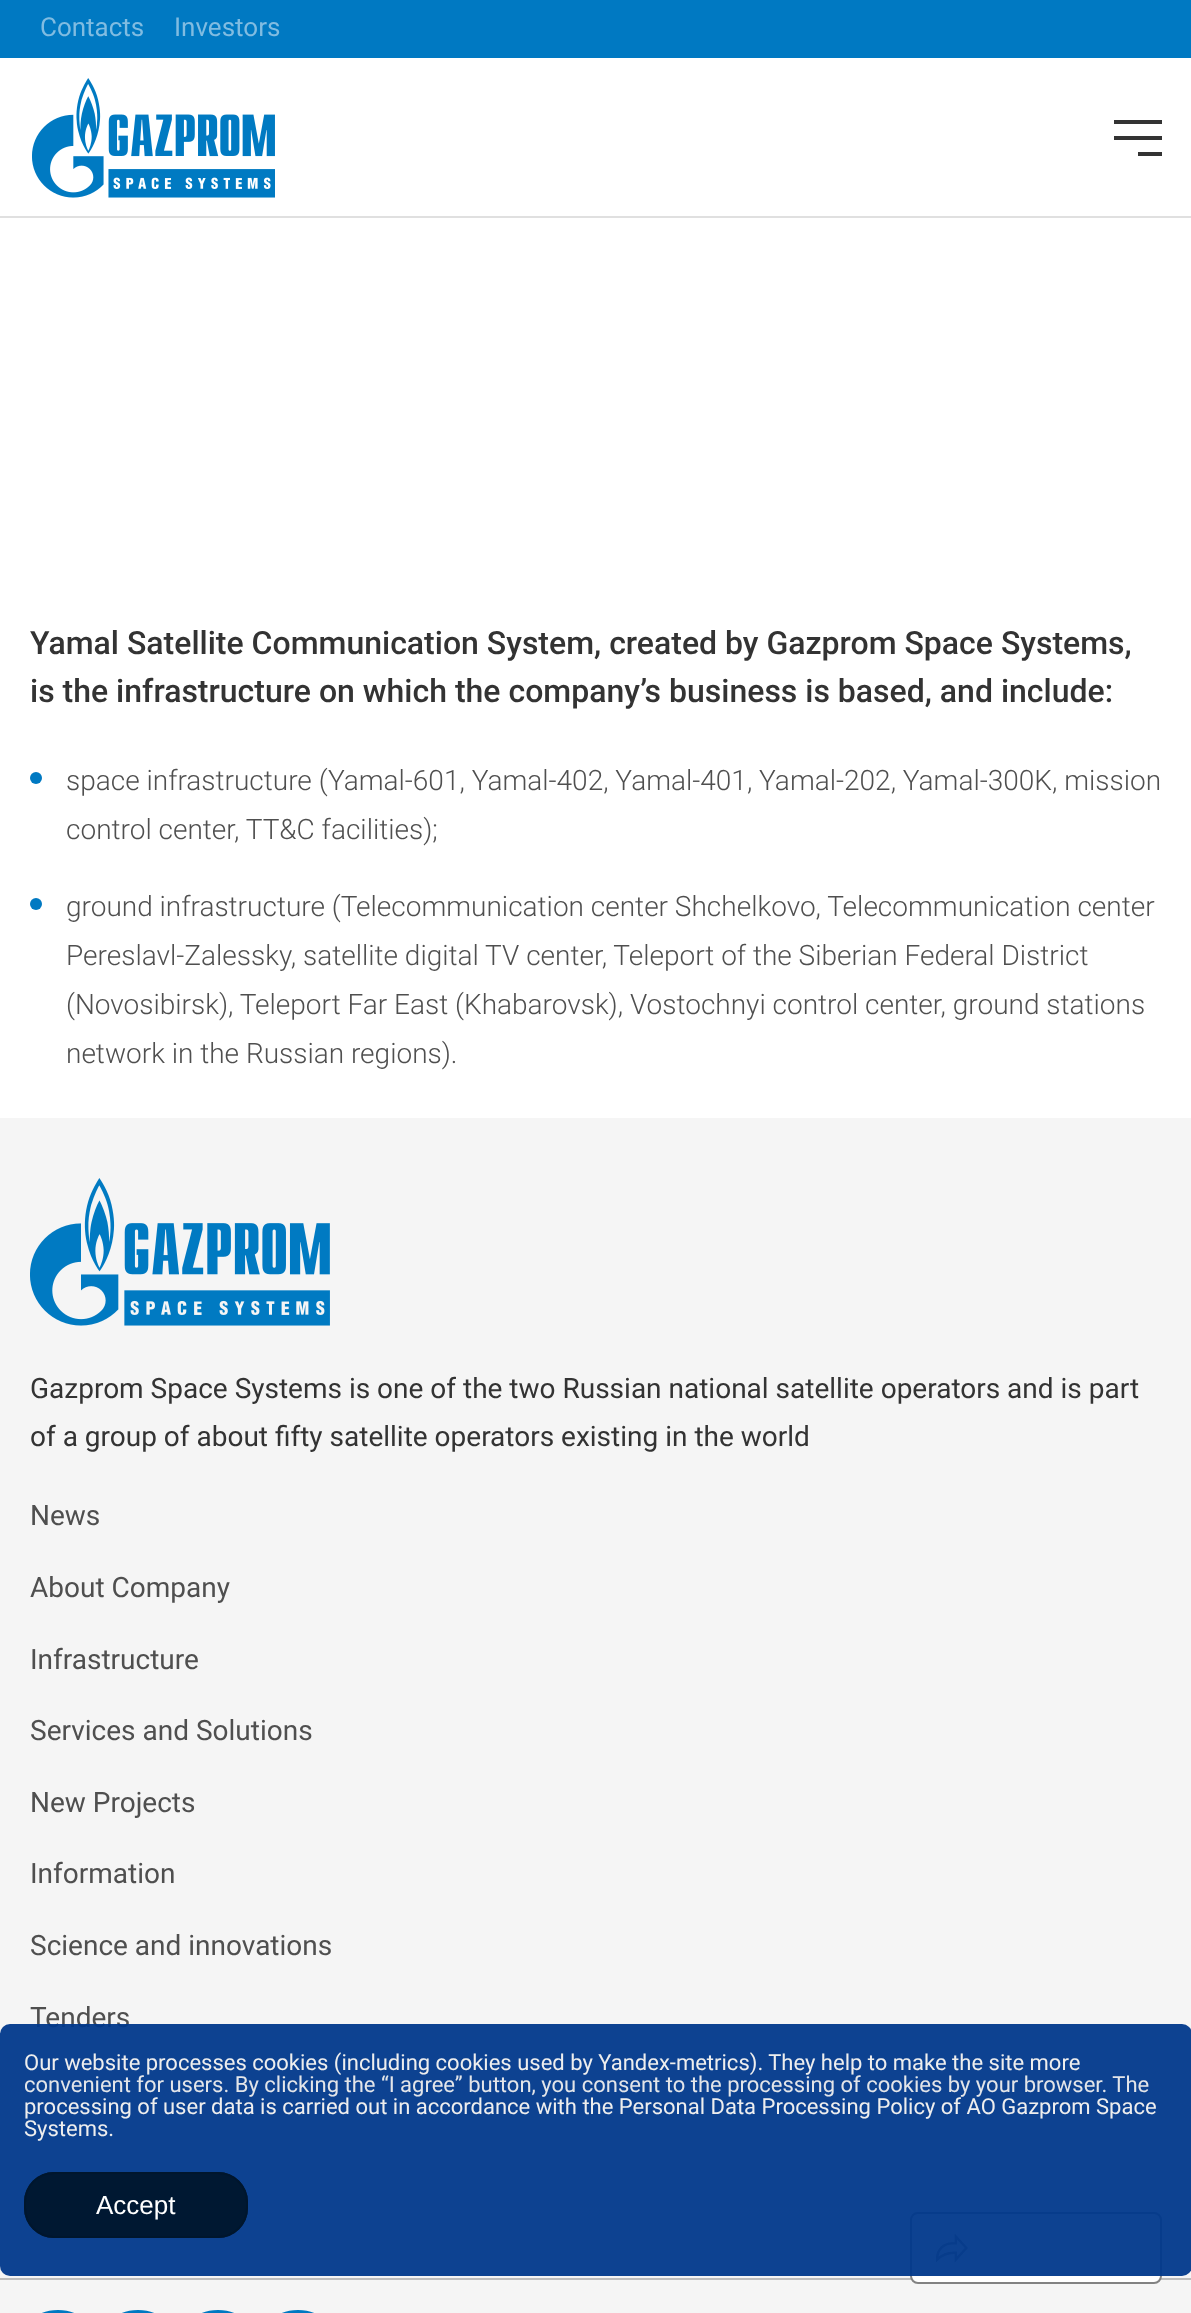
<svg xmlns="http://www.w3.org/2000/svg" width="1191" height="2313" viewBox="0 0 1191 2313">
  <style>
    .t1 { font: 26px Roboto; fill: #80bce1; }
    .t2 { font: 500 32px Roboto; fill: #333; }
    .t3 { font: 300 28px Roboto; fill: #4f4f4f; }
    .t4 { font: 28px Roboto; fill: #333; }
    .t5 { font: 28px Roboto; fill: #4f4f4f; }
    .t6 { font: 22px Roboto; fill: #eee; }
    .t7 { font: 22px Roboto; fill: #e3e5e9; }
    .t8 { font: 26px Liberation Sans; fill: #fff; }
  </style>
  <rect width="100%" height="100%" fill="#fff"/>
  <rect x="0" y="0" width="1191" height="58" fill="#0079c2"/>
  <text x="40" y="36" class="t1">Contacts</text>
  <text x="174" y="36" class="t1">Investors</text>
  <rect x="0" y="216" width="1191" height="2" fill="#e0e0e0"/>
  <image x="32" y="78" width="243" height="120" href="images/1.png"/>
  <rect x="1114" y="120" width="48" height="4" fill="#333"/>
  <rect x="1114" y="136" width="48" height="4" fill="#333"/>
  <rect x="1138" y="152" width="24" height="4" fill="#333"/>
  <text x="30" y="654" class="t2">Yamal Satellite Communication System, created by Gazprom Space Systems,</text>
  <text x="30" y="702" class="t2">is the infrastructure on which the company’s business is based, and include:</text>
  <circle cx="36" cy="778" r="6" fill="#0079c2"/>
  <text x="66" y="790" class="t3">space infrastructure (Yamal-601, Yamal-402, Yamal-401, Yamal-202, Yamal-300K, mission</text>
  <text x="66" y="839" class="t3">control center, TT&amp;C facilities);</text>
  <circle cx="36" cy="904" r="6" fill="#0079c2"/>
  <text x="66" y="916" class="t3">ground infrastructure (Telecommunication center Shchelkovo, Telecommunication center</text>
  <text x="66" y="965" class="t3">Pereslavl-Zalessky, satellite digital TV center, Teleport of the Siberian Federal District</text>
  <text x="66" y="1014" class="t3">(Novosibirsk), Teleport Far East (Khabarovsk), Vostochnyi control center, ground stations</text>
  <text x="66" y="1063" class="t3">network in the Russian regions).</text>
  <rect x="0" y="1118" width="1191" height="1195" fill="#f5f5f5"/>
  <image x="30" y="1178" width="300" height="148" href="images/2.png"/>
  <text x="30" y="1398" class="t4">Gazprom Space Systems is one of the two Russian national satellite operators and is part</text>
  <text x="30" y="1446" class="t4">of a group of about fifty satellite operators existing in the world</text>
  <text x="30" y="1525" class="t5">News</text>
  <text x="30" y="1597" class="t5">About Company</text>
  <text x="30" y="1669" class="t5">Infrastructure</text>
  <text x="30" y="1740" class="t5">Services and Solutions</text>
  <text x="30" y="1812" class="t5">New Projects</text>
  <text x="30" y="1883" class="t5">Information</text>
  <text x="30" y="1955" class="t5">Science and innovations</text>
  <text x="30" y="2027" class="t5">Tenders</text>
  <rect x="0" y="2278" width="1191" height="2" fill="#bdbdbd"/>
  <rect x="31" y="2311" width="54" height="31" rx="27" fill="#0079c2" stroke="#0079c2" stroke-width="2"/>
  <rect x="111" y="2311" width="54" height="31" rx="27" fill="#0079c2" stroke="#0079c2" stroke-width="2"/>
  <rect x="191" y="2311" width="54" height="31" rx="27" fill="#0079c2" stroke="#0079c2" stroke-width="2"/>
  <rect x="271" y="2311" width="54" height="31" rx="27" fill="#0079c2" stroke="#0079c2" stroke-width="2"/>
  <rect x="911" y="2213" width="250" height="70" rx="7" fill="#fff" stroke="#828282" stroke-width="2"/>
  <image x="936" y="2233" width="32" height="30" href="images/3.png"/>
  <rect x="0" y="2024" width="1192" height="252" rx="10" fill="#00388bf2"/>
  <text x="24" y="2070" class="t6">Our website processes cookies (including cookies used by Yandex-metrics). They help to make the site more</text>
  <text x="24" y="2092" class="t7">convenient for users. By clicking the “I agree” button, you consent to the processing of cookies by your browser. The</text>
  <text x="24" y="2114" class="t6">processing of user data is carried out in accordance with the Personal Data Processing Policy of AO Gazprom Space</text>
  <text x="24" y="2136" class="t6">Systems.</text>
  <rect x="24" y="2172" width="224" height="66" rx="30" fill="#00162df2"/>
  <rect x="25" y="2173" width="222" height="64" rx="29" fill="none" stroke="#00162df2" stroke-width="2"/>
  <text x="96" y="2214" class="t8">Accept</text>
</svg>
